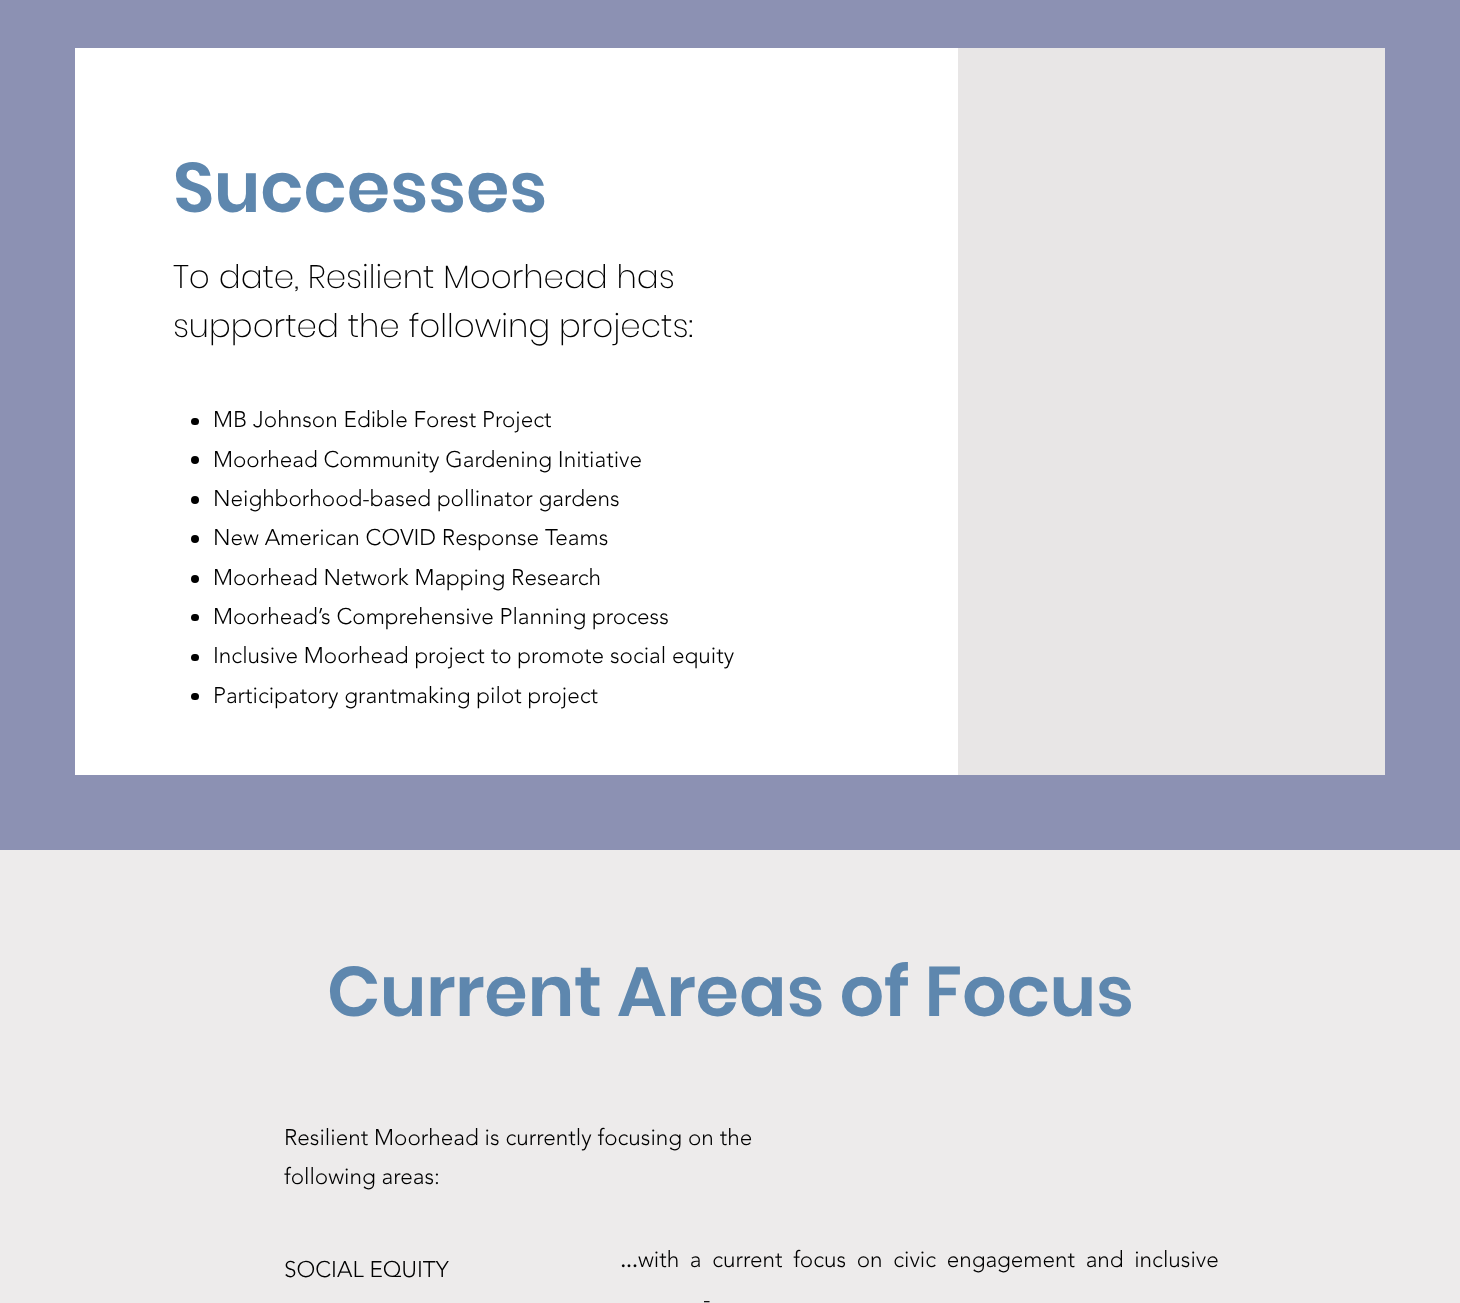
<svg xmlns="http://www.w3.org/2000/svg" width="1460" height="1303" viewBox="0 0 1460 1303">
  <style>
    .t1 { font: 600 70px Poppins; fill: #5e87ae; }
    .t2 { font: 200 32.5px Poppins; fill: #000; }
    .t3 { font: 300 22.5px 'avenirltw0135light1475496'; fill: #000; }
    .t4 { font: bold 22.5px 'avenirltw0135light1475496'; fill: #000; }
  </style>
  <rect width="100%" height="100%" fill="#8c91b3"/>
  <rect x="75" y="48" width="883" height="727" fill="#fff"/>
  <text x="173" y="212" class="t1">Successes</text>
  <text x="173" y="288" class="t2">To date, Resilient Moorhead has</text>
  <text x="173" y="337" class="t2">supported the following projects:</text>
  <rect x="191" y="418" width="8" height="7" rx="3.5" fill="#000"/>
  <text x="213" y="427" class="t3">MB Johnson Edible Forest Project</text>
  <circle cx="195" cy="460" r="4" fill="#000"/>
  <text x="213" y="467" class="t3">Moorhead Community Gardening Initiative</text>
  <circle cx="195" cy="500" r="4" fill="#000"/>
  <text x="213" y="506" class="t3">Neighborhood-based pollinator gardens</text>
  <circle cx="195" cy="539" r="4" fill="#000"/>
  <text x="213" y="545" class="t3">New American COVID Response Teams</text>
  <circle cx="195" cy="579" r="4" fill="#000"/>
  <text x="213" y="585" class="t3">Moorhead Network Mapping Research</text>
  <rect x="191" y="614" width="8" height="7" rx="3.5" fill="#000"/>
  <text x="213" y="624" class="t3">Moorhead’s Comprehensive Planning process</text>
  <rect x="191" y="654" width="8" height="7" rx="3.5" fill="#000"/>
  <text x="213" y="663" class="t3">Inclusive Moorhead project to promote social equity</text>
  <rect x="191" y="693" width="8" height="7" rx="3.5" fill="#000"/>
  <text x="213" y="703" class="t3">Participatory grantmaking pilot project</text>
  <rect x="958" y="48" width="427" height="727" fill="#e8e6e6"/>
  <rect x="0" y="850" width="1460" height="453" fill="#edebeb"/>
  <text x="327" y="1016" class="t1">Current Areas of Focus</text>
  <text x="284" y="1145" class="t3">Resilient Moorhead is currently focusing on the</text>
  <text x="284" y="1184" class="t3">following areas:</text>
  <text x="284" y="1277" class="t3">SOCIAL EQUITY</text>
  <text x="620" y="1267" class="t4">...</text>
  <text x="638" y="1267" word-spacing="4.75" class="t3">with a current focus on civic engagement and inclusive</text>
  <text x="703" y="1307" word-spacing="6" class="t3">-</text>
</svg>
